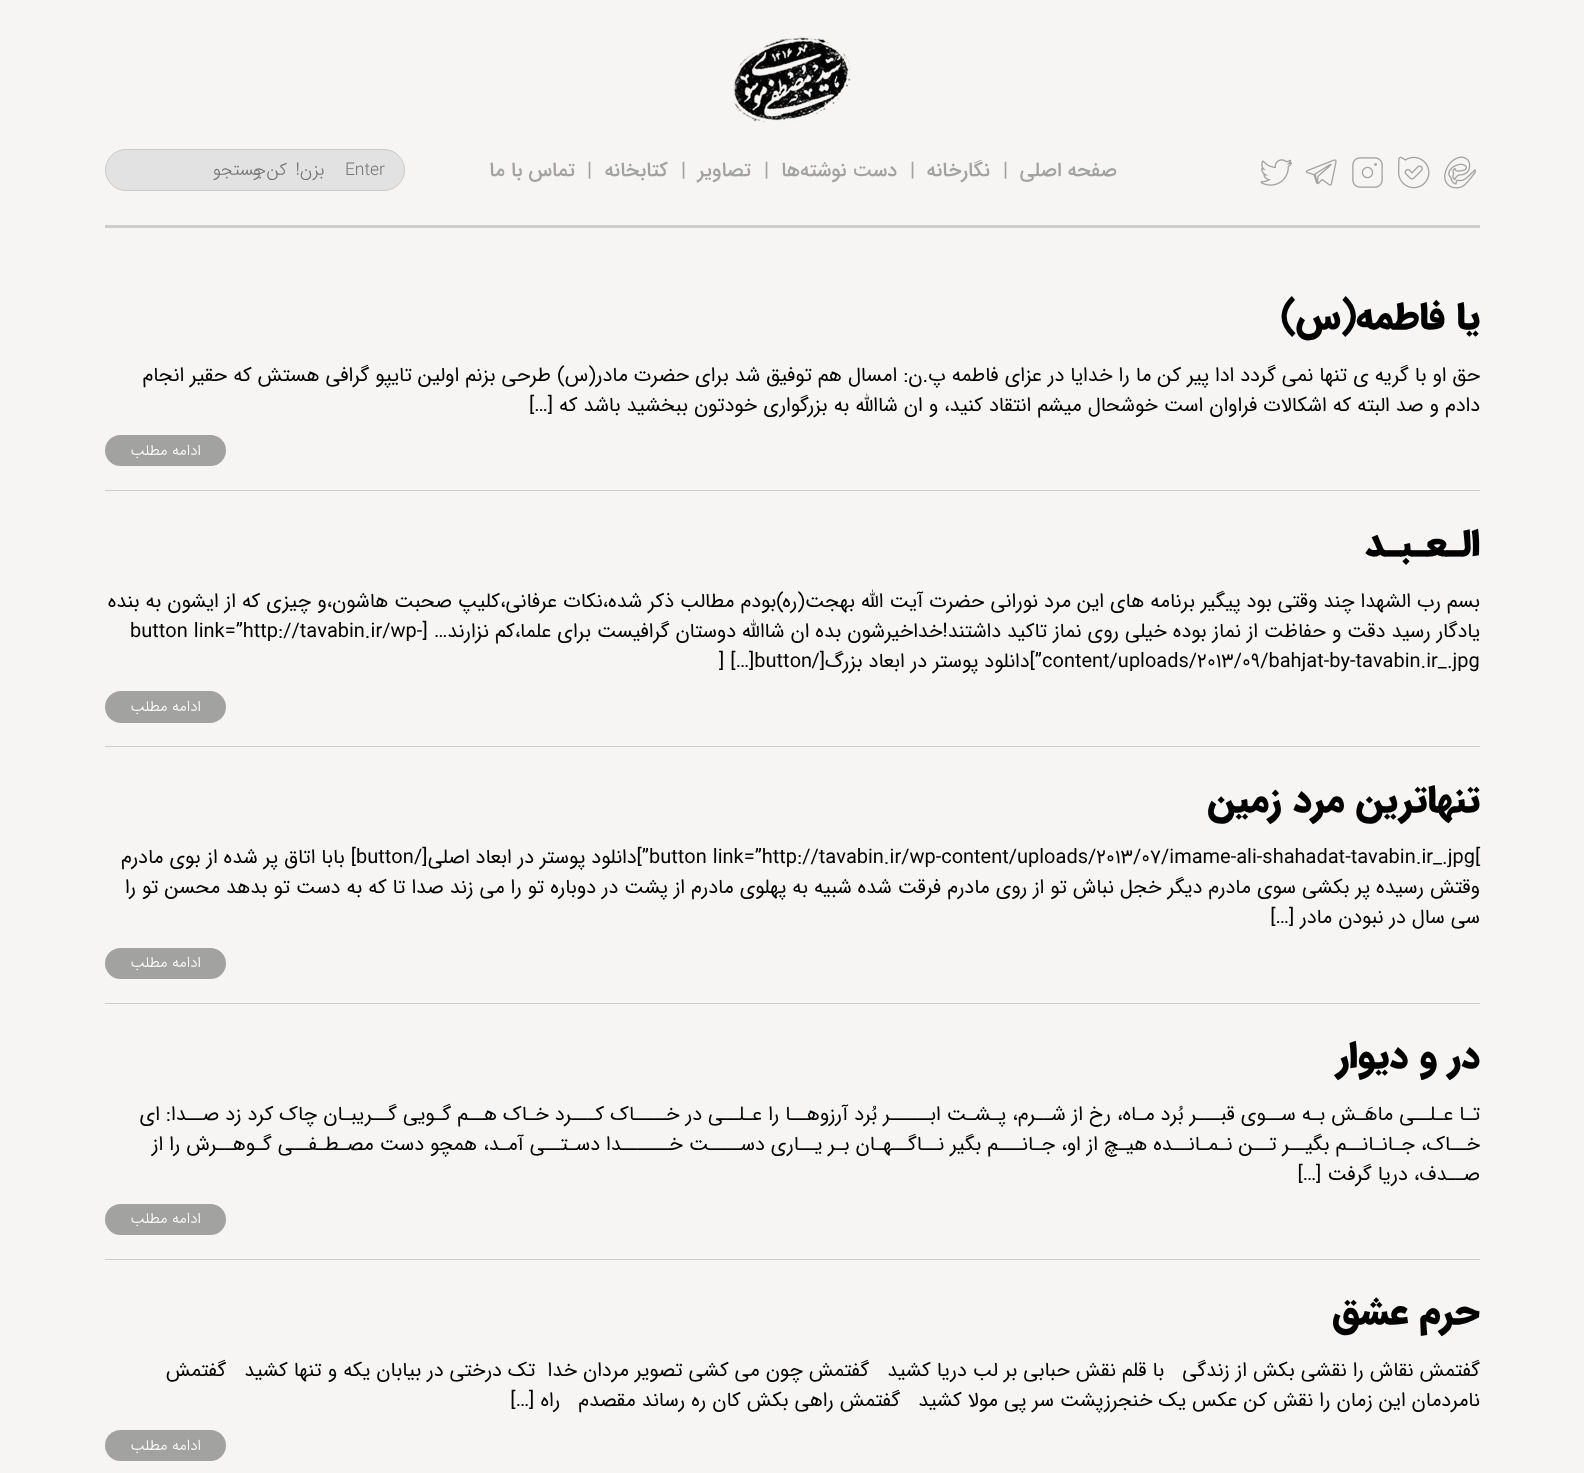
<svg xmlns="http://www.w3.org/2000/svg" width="1584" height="1473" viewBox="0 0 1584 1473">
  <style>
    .t1 { font: 500 20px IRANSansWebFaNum; direction: rtl; fill: #a2a2a1; }
    .t2 { font: 500 20px IRANSansWebFaNum; fill: #a2a2a1; }
    .t3 { font: 300 17.5px IRANSansWebFaNum; direction: rtl; fill: #757575; }
    .t4 { font: 900 37.5px IRANSansWebFaNum; direction: rtl; fill: #000; }
    .t5 { font: 20px IRANSansWebFaNum; direction: rtl; fill: #000; }
    .t6 { font: 300 15px IRANSansWebFaNum; direction: rtl; fill: #fff; }
    .t7 { font: 20px IRANSansWebFaNum; fill: #000; }
  </style>
  <rect width="100%" height="100%" fill="#f6f5f4"/>
  <rect x="105" y="225" width="1375" height="3" fill="#ccc"/>
  <image x="734" y="37" width="117" height="86" href="images/1.png"/>
  <image x="1444" y="156" width="32" height="33" href="images/2.png"/>
  <image x="1398" y="156" width="32" height="33" href="images/3.png"/>
  <image x="1352" y="157" width="31" height="31" href="images/4.png"/>
  <image x="1305" y="159" width="32" height="27" href="images/5.png"/>
  <image x="1260" y="159" width="32" height="27" href="images/6.png"/>
  <text x="1117" y="176" class="t1">صفحه اصلی</text>
  <text x="1003" y="176" class="t2">|</text>
  <text x="990" y="176" class="t1">نگارخانه</text>
  <text x="910" y="176" class="t2">|</text>
  <text x="897" y="176" class="t1">دست نوشته‌ها</text>
  <text x="764" y="176" class="t2">|</text>
  <text x="751" y="176" class="t1">تصاویر</text>
  <text x="681" y="176" class="t2">|</text>
  <text x="668" y="176" class="t1">کتابخانه</text>
  <text x="587" y="176" class="t2">|</text>
  <text x="575" y="176" class="t1">تماس با ما</text>
  <rect x="105.5" y="149.5" width="299" height="41" rx="20.5" fill="#e2e2e2" stroke="#cacaca"/>
  <text x="385" y="175" word-spacing="15" class="t3">Enter بزن!</text>
  <text x="266" y="175" class="t3">جستجو</text>
  <text x="287" y="175" class="t3">کن و</text>
  <rect x="105" y="490" width="1375" height="1" fill="#ccc"/>
  <text x="1480" y="328" class="t4">یا فاطمه(س)</text>
  <text x="1480" y="381" class="t5">حق او با گریه ی تنها نمی گردد ادا پیر کن ما را خدایا در عزای فاطمه پ.ن: امسال هم توفیق شد برای حضرت مادر(س) طرحی بزنم اولین تایپو گرافی هستش که حقیر انجام</text>
  <text x="1480" y="411" class="t5">دادم و صد البته که اشکالات فراوان است خوشحال میشم انتقاد کنید، و ان شاالله به بزرگواری خودتون ببخشید باشد که […]</text>
  <rect x="105" y="435" width="121" height="31" rx="15.5" fill="#a2a2a1"/>
  <text x="201" y="455" class="t6">ادامه مطلب</text>
  <rect x="105" y="746" width="1375" height="1" fill="#ccc"/>
  <text x="1480" y="555" class="t4">الـعـبـد</text>
  <text x="1480" y="607" class="t5">بسم رب الشهدا چند وقتی بود پیگیر برنامه های این مرد نورانی حضرت آیت الله بهجت(ره)بودم مطالب ذکر شده،نکات عرفانی،کلیپ صحبت هاشون،و چیزی که از ایشون به بنده</text>
  <text x="130" y="637" class="t7">button link=”http://tavabin.ir/wp-</text>
  <text x="1480" y="637" class="t5">یادگار رسید دقت و حفاظت از نماز بوده خیلی روی نماز تاکید داشتند!خداخیرشون بده ان شاالله دوستان گرافیست برای علما،کم نزارند… [</text>
  <text x="1042" y="667" class="t7">content/uploads/2013/09/bahjat-by-tavabin.ir_.jpg</text>
  <text x="1042" y="667" class="t5">”]دانلود پوستر در ابعاد بزرگ[/</text>
  <text x="719" y="667" class="t7">] […]button</text>
  <rect x="105" y="691" width="121" height="32" rx="16" fill="#a2a2a1"/>
  <text x="201" y="711" class="t6">ادامه مطلب</text>
  <rect x="105" y="1003" width="1375" height="1" fill="#ccc"/>
  <text x="1480" y="811" class="t4">تنهاترین مرد زمین</text>
  <text x="649" y="863" class="t7">button link=”http://tavabin.ir/wp-content/uploads/2013/07/imame-ali-shahadat-tavabin.ir_.jpg[</text>
  <text x="649" y="863" class="t5">”]دانلود پوستر در ابعاد اصلی[/</text>
  <text x="356" y="863" class="t7">button</text>
  <text x="356" y="863" class="t5">] بابا اتاق پر شده از بوی مادرم</text>
  <text x="1480" y="893" class="t5">وقتش رسیده پر بکشی سوی مادرم دیگر خجل نباش تو از روی مادرم فرقت شده شبیه به پهلوی مادرم از پشت در دوباره تو را می زند صدا تا که به دست تو بدهد محسن تو را</text>
  <text x="1480" y="923" class="t5">سی سال در نبودن مادر […]</text>
  <rect x="105" y="948" width="121" height="31" rx="15.5" fill="#a2a2a1"/>
  <text x="201" y="967" class="t6">ادامه مطلب</text>
  <rect x="105" y="1259" width="1375" height="1" fill="#ccc"/>
  <text x="1480" y="1067" class="t4">در و دیوار</text>
  <text x="1480" y="1120" class="t5">تـا عـلــی ماهَـش بـه ســوی قبـــر بُرد مـاه، رخ از شــرم، پـشـت ابـــــر بُرد آرزوهــا را عـلــی در خــــاک کـــرد خـاک هــم گـویی گــریبـان چاک کرد زد صــدا: ای</text>
  <text x="1480" y="1150" class="t5">خــاک، جـانـانــم بگیــر تــن نـمـانــده هیـچ از او، جـانـــم بگیر نــاگــهـان بـر یــاری دســــت خــــــدا دسـتــی آمـد، همچو دست مصـطـفــی گـوهــرش را از</text>
  <text x="1480" y="1180" class="t5">صــدف، دریا گرفت […]</text>
  <rect x="105" y="1204" width="121" height="31" rx="15.5" fill="#a2a2a1"/>
  <text x="201" y="1223" class="t6">ادامه مطلب</text>
  <text x="1480" y="1323" class="t4">حرم عشق</text>
  <text x="1480" y="1376" class="t5" xml:space="preserve">گفتمش نقاش را نقشی بکش از زندگی   با قلم نقش حبابی بر لب دریا کشید   گفتمش چون می کشی تصویر مردان خدا  تک درختی در بیابان یکه و تنها کشید   گفتمش</text>
  <text x="1480" y="1406" class="t5" xml:space="preserve">نامردمان این زمان را نقش کن عکس یک خنجرزپشت سر پی مولا کشید   گفتمش راهی بکش کان ره رساند مقصدم   راه […]</text>
  <rect x="105" y="1430" width="121" height="31" rx="15.5" fill="#a2a2a1"/>
  <text x="201" y="1450" class="t6">ادامه مطلب</text>
</svg>
